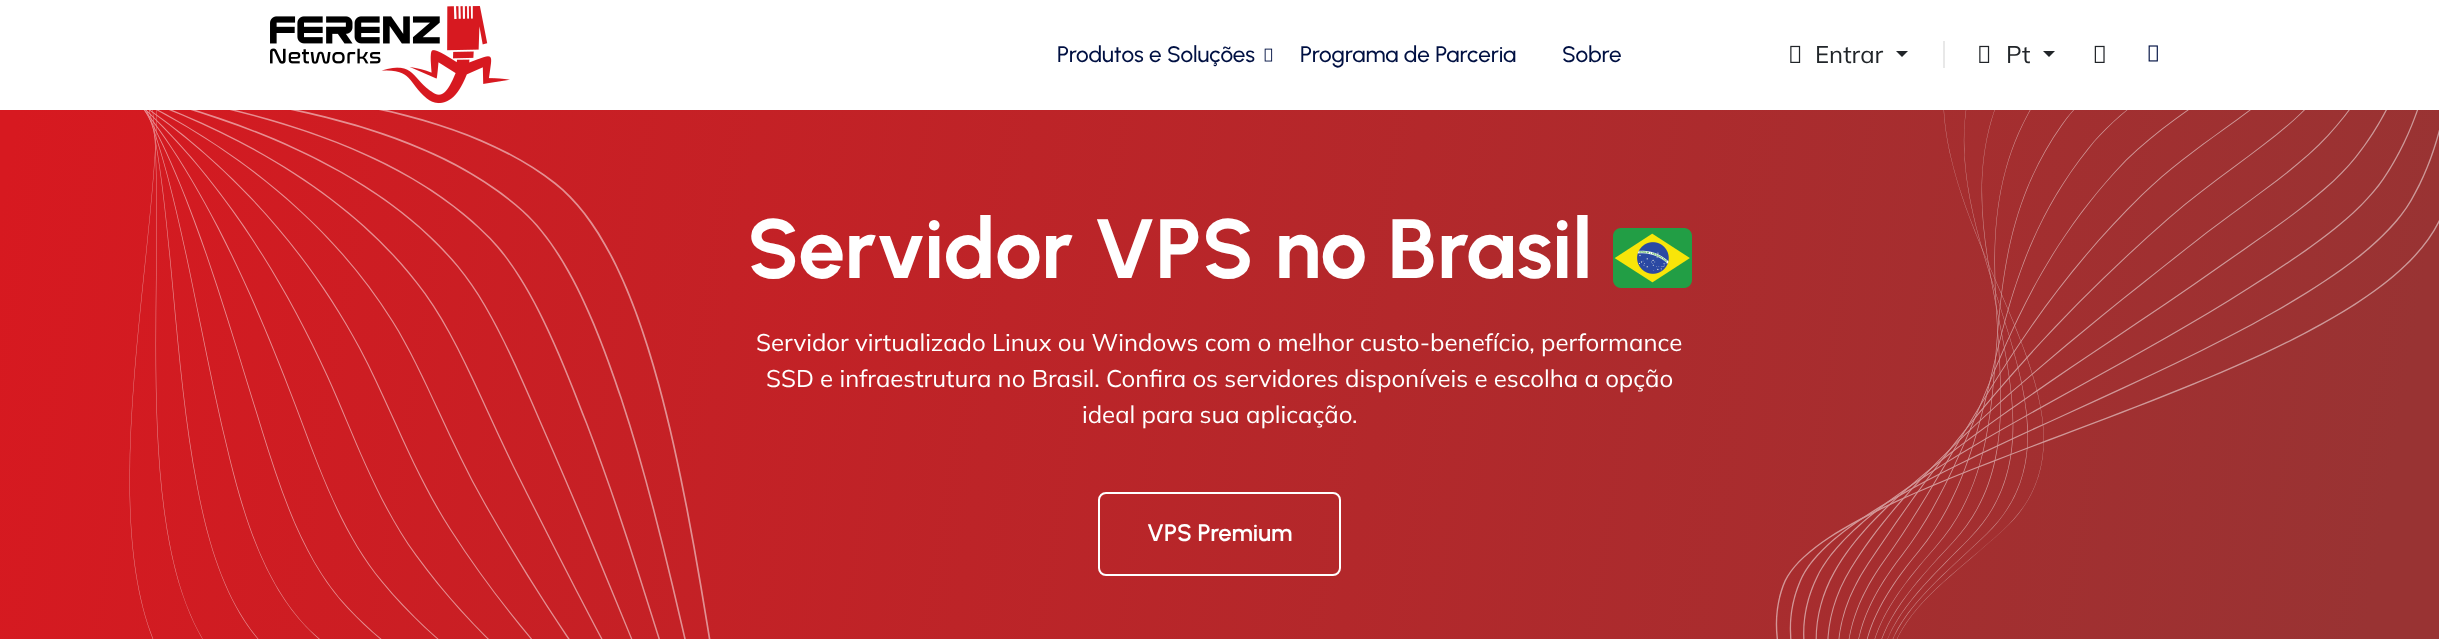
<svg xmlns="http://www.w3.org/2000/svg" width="2439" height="639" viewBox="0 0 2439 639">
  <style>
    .t1 { font: 500 22.5px Urbanist; fill: #001042; }
    .t2 { font: 24px Mulish; fill: #212529; }
    .t3 { font: bold 84px Urbanist; fill: #fff; }
    .t4 { font: 24px Mulish; fill: #fff; }
    .t5 { font: 600 24px Urbanist; fill: #fff; }
  </style>
  <defs>
    <linearGradient id="g1" gradientUnits="userSpaceOnUse" x1="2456" y1="560" x2="-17" y2="155"><stop offset="0.03" stop-color="#933"/><stop offset="0.99" stop-color="#d71920"/></linearGradient>
  </defs>
  <rect width="100%" height="100%" fill="#fff"/>
  <image x="270" y="6" width="240" height="98" href="images/1.png"/>
  <text x="1057" y="62" class="t1">Produtos e Soluções</text>
  <image x="1264" y="48" width="9" height="14" href="images/2.png"/>
  <text x="1300" y="62" class="t1">Programa de Parceria</text>
  <text x="1562" y="62" class="t1">Sobre</text>
  <image x="1790" y="45" width="11" height="18" href="images/3.png"/>
  <text x="1815" y="63" class="t2">Entrar</text>
  <path d="M1896 51H1908L1902 57Z" fill="#212529"/>
  <rect x="1943" y="41" width="2" height="27" fill="#e8e8e8"/>
  <image x="1979" y="45" width="11" height="18" href="images/3.png"/>
  <text x="2006" y="63" class="t2">Pt</text>
  <path d="M2043 51H2055L2049 57Z" fill="#212529"/>
  <image x="2094" y="45" width="11" height="18" href="images/4.png"/>
  <image x="2148" y="45" width="10" height="17" href="images/5.png"/>
  <rect x="0" y="110" width="2439" height="529" fill="url(#g1)"/>
  <image x="129" y="110" width="582" height="529" href="images/6.png"/>
  <text x="747" y="278" class="t3">Servidor VPS no Brasil</text>
  <image x="1613" y="228" width="79" height="60" href="images/7.png"/>
  <text x="756" y="351" class="t4">Servidor virtualizado Linux ou Windows com o melhor custo-benefício, performance</text>
  <text x="766" y="387" class="t4">SSD e infraestrutura no Brasil. Confira os servidores disponíveis e escolha a opção</text>
  <text x="1082" y="423" class="t4">ideal para sua aplicação.</text>
  <rect x="1099" y="493" width="241" height="82" rx="7" fill="none" stroke="#fff" stroke-width="2"/>
  <text x="1147" y="541" class="t5">VPS Premium</text>
  <image x="1775" y="110" width="664" height="529" href="images/8.png"/>
</svg>
